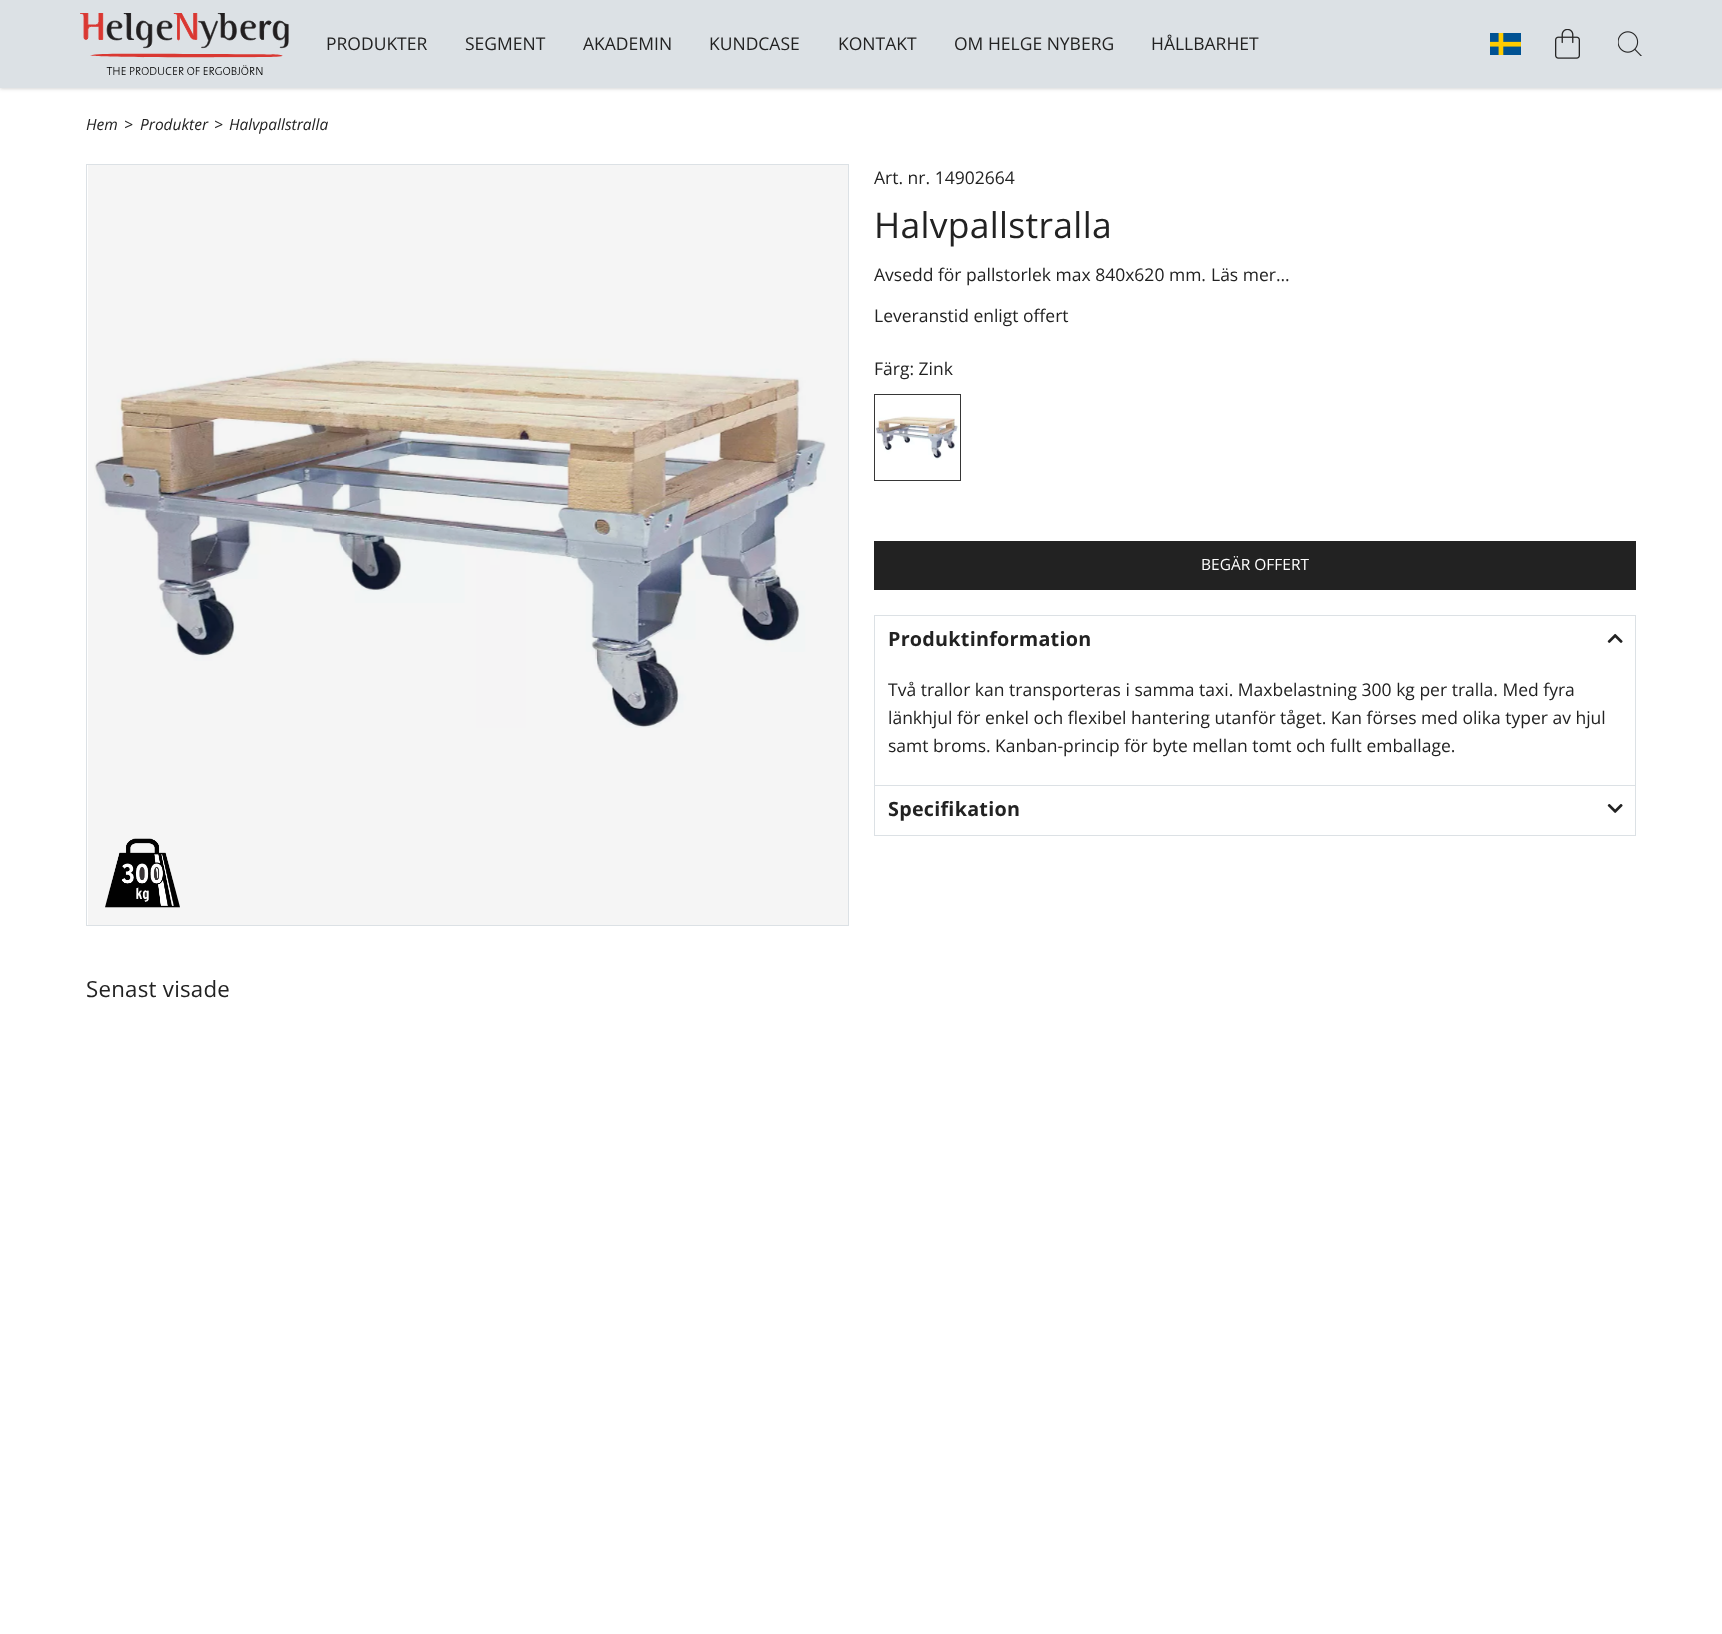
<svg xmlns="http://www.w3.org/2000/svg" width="1722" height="1634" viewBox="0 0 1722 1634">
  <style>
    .t1 { font: 17.5px Open Sans; fill: #222; }
    .t2 { font: italic 15.5px Open Sans; fill: #222; }
    .t3 { font: 35.5px Open Sans; letter-spacing: 0.3px; fill: #222; }
    .t4 { font: 15.5px Open Sans; fill: #fff; }
    .t5 { font: bold 19.75px Open Sans; letter-spacing: 0.25px; fill: #222; }
    .t6 { font: 22.25px Open Sans; letter-spacing: 0.25px; fill: #222; }
  </style>
  <rect width="100%" height="100%" fill="#fff"/>
  <rect x="88" y="165" width="760" height="760" fill="#f5f5f5"/>
  <rect x="0" y="1" width="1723" height="88" fill="#0000000f" filter="blur(1px)"/>
  <rect x="0" y="1" width="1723" height="88" fill="#0000001a" filter="blur(2px)"/>
  <rect x="0" y="0" width="1722" height="88" fill="#dce1e5"/>
  <image x="80" y="13" width="209" height="62" href="images/1.png"/>
  <text x="326" y="50" class="t1">PRODUKTER</text>
  <text x="465" y="50" class="t1">SEGMENT</text>
  <text x="583" y="50" class="t1">AKADEMIN</text>
  <text x="709" y="50" class="t1">KUNDCASE</text>
  <text x="838" y="50" class="t1">KONTAKT</text>
  <text x="954" y="50" class="t1">OM HELGE NYBERG</text>
  <text x="1151" y="50" class="t1">HÅLLBARHET</text>
  <image x="1490" y="33" width="31" height="22" href="images/2.png"/>
  <image x="1555" y="29" width="25" height="30" href="images/3.png"/>
  <image x="1618" y="31" width="24" height="25" href="images/4.png"/>
  <text x="86" y="130" class="t2">Hem</text>
  <text x="124" y="130" class="t2">&gt;</text>
  <text x="140" y="130" class="t2">Produkter</text>
  <text x="214" y="130" class="t2">&gt;</text>
  <text x="229" y="130" class="t2">Halvpallstralla</text>
  <rect x="86.5" y="164.5" width="762" height="761" fill="none" stroke="#dce1e5"/>
  <image x="94" y="358" width="732" height="370" href="images/5.png"/>
  <image x="105" y="838" width="75" height="70" href="images/6.png"/>
  <text x="874" y="184" class="t1">Art. nr. 14902664</text>
  <text x="874" y="238" class="t3">Halvpallstralla</text>
  <text x="874" y="281" class="t1">Avsedd för pallstorlek max 840x620 mm.</text>
  <text x="1211" y="281" class="t1">Läs mer...</text>
  <text x="874" y="322" class="t1">Leveranstid enligt offert</text>
  <text x="874" y="375" class="t1">Färg: Zink</text>
  <rect x="874.5" y="394.5" width="86" height="86" fill="none" stroke="#363636"/>
  <image x="875" y="416" width="84" height="44" href="images/7.png"/>
  <rect x="874" y="541" width="762" height="49" fill="#222"/>
  <text x="1201" y="570" class="t4">BEGÄR OFFERT</text>
  <rect x="874" y="835" width="762" height="1" fill="#dce1e5"/>
  <rect x="874" y="615" width="762" height="1" fill="#dce1e5"/>
  <rect x="1635" y="615" width="1" height="49" fill="#dce1e5"/>
  <rect x="874" y="615" width="1" height="49" fill="#dce1e5"/>
  <text x="888" y="646" class="t5">Produktinformation</text>
  <image x="1607" y="633" width="16" height="10" href="images/8.png"/>
  <rect x="1635" y="664" width="1" height="121" fill="#dce1e5"/>
  <rect x="874" y="664" width="1" height="121" fill="#dce1e5"/>
  <text x="888" y="696" class="t1">Två trallor kan transporteras i samma taxi. Maxbelastning 300 kg per tralla. Med fyra</text>
  <text x="888" y="724" class="t1">länkhjul för enkel och flexibel hantering utanför tåget. Kan förses med olika typer av hjul</text>
  <text x="888" y="752" class="t1">samt broms. Kanban-princip för byte mellan tomt och fullt emballage.</text>
  <rect x="874" y="785" width="762" height="1" fill="#dce1e5"/>
  <rect x="1635" y="785" width="1" height="50" fill="#dce1e5"/>
  <rect x="874" y="785" width="1" height="50" fill="#dce1e5"/>
  <text x="888" y="816" class="t5">Specifikation</text>
  <image x="1607" y="804" width="16" height="9" href="images/9.png"/>
  <text x="86" y="997" class="t6">Senast visade</text>
</svg>
